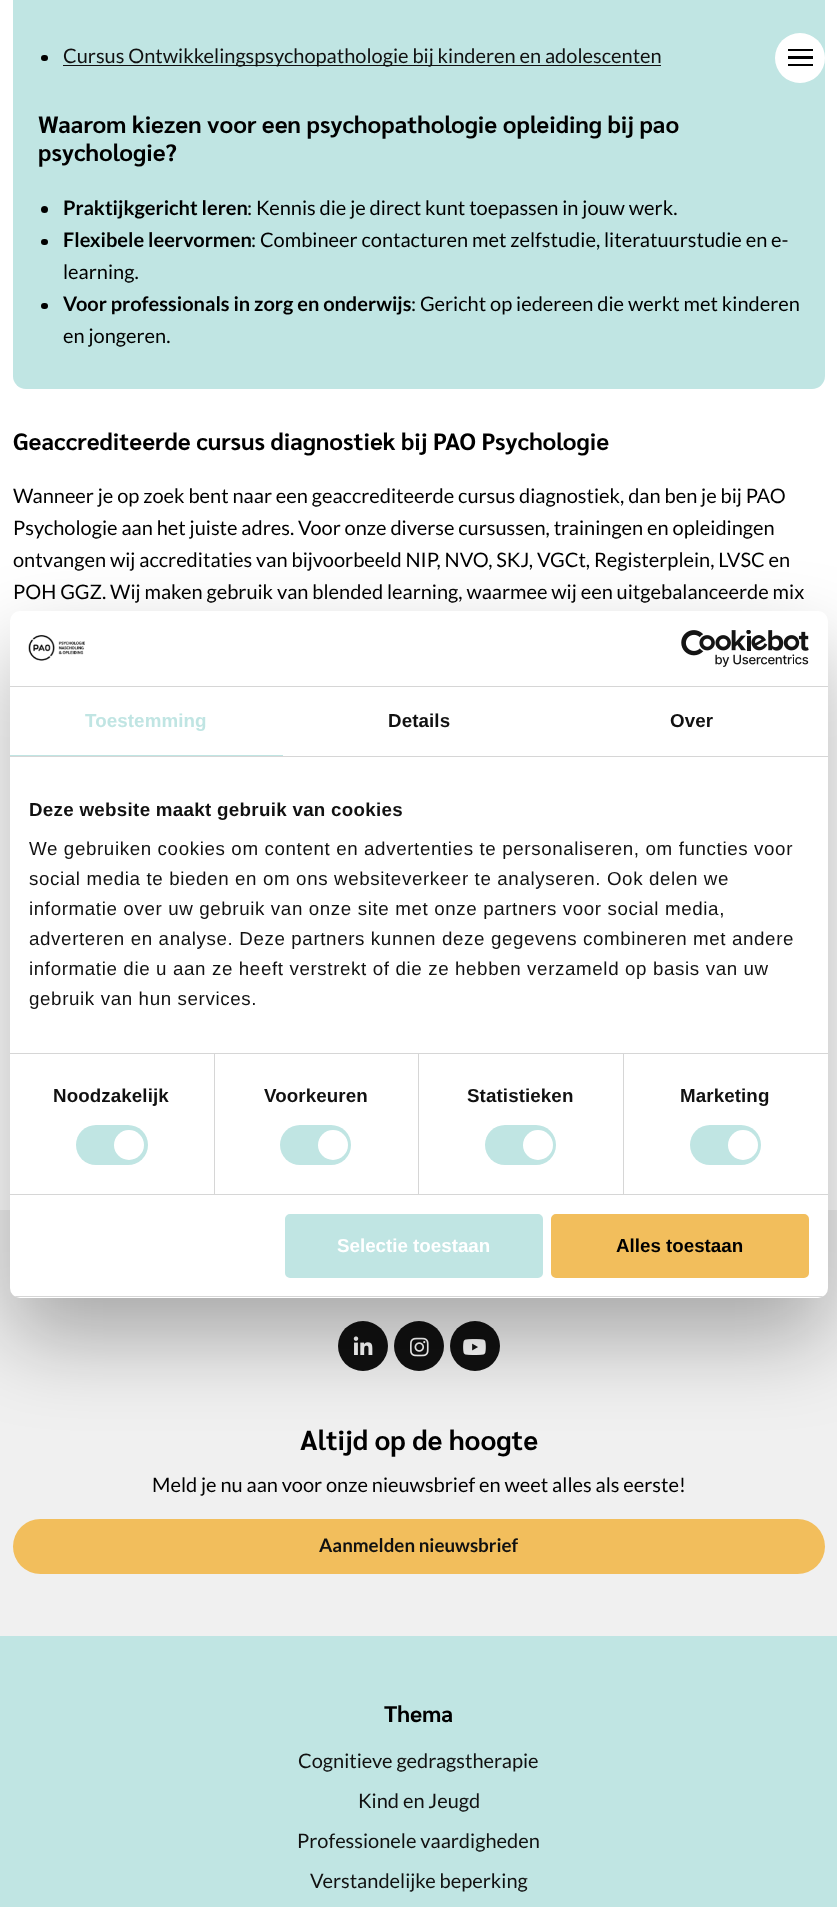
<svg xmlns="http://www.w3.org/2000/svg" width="837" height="1907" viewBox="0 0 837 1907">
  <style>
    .t1 { font: 20px Lato; fill: #111; }
    .t2 { font: bold 23.75px Sarabun; fill: #000; }
    .t3 { font: bold 20px Lato; fill: #000; }
    .t4 { font: 20px Lato; fill: #000; }
    .t5 { font: bold 18.75px Liberation Sans; letter-spacing: 0.1px; fill: #c0e5e3; }
    .t6 { font: bold 18.75px Liberation Sans; letter-spacing: 0.1px; fill: #111; }
    .t7 { font: bold 18.75px Liberation Sans; letter-spacing: 0.3px; fill: #111; }
    .t8 { font: 18.75px Liberation Sans; letter-spacing: 0.62px; fill: #111; }
    .t9 { font: bold 18.75px Liberation Sans; fill: #fff; }
    .t10 { font: bold 18.75px Liberation Sans; fill: #000; }
    .t11 { font: bold 27.5px Sarabun; fill: #000; }
    .t12 { font: bold 18.75px Lato; fill: #111; }
    .t13 { font: bold 22.5px Sarabun; fill: #000; }
  </style>
  <defs>
    <clipPath id="clip1"><rect x="10" y="611" width="818" height="687" rx="10"/></clipPath>
  </defs>
  <rect width="100%" height="100%" fill="#fff"/>
  <rect x="13" y="-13" width="812" height="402" rx="13" fill="#c0e5e3"/>
  <circle cx="800" cy="58" r="25" fill="#fff"/>
  <rect x="788" y="56" width="25" height="3" fill="#000"/>
  <rect x="788" y="49" width="25" height="2" fill="#000"/>
  <rect x="788" y="64" width="25" height="2" fill="#000"/>
  <rect x="41" y="55" width="7" height="6" rx="3" fill="#000"/>
  <rect x="63" y="65" width="598" height="1" fill="#111"/>
  <text x="63" y="63" class="t1">Cursus Ontwikkelingspsychopathologie bij kinderen en adolescenten</text>
  <text x="38" y="133" class="t2">Waarom kiezen voor een psychopathologie opleiding bij pao</text>
  <text x="38" y="161" class="t2">psychologie?</text>
  <circle cx="44.5" cy="209.5" r="3.5" fill="#000"/>
  <text x="63" y="215" class="t3">Praktijkgericht leren</text>
  <text x="247" y="215" class="t4">: Kennis die je direct kunt toepassen in jouw werk.</text>
  <rect x="41" y="239" width="7" height="6" rx="3" fill="#000"/>
  <text x="63" y="247" class="t3">Flexibele leervormen</text>
  <text x="251" y="247" class="t4">: Combineer contacturen met zelfstudie, literatuurstudie en e-</text>
  <text x="63" y="279" class="t4">learning.</text>
  <rect x="41" y="303" width="7" height="6" rx="3" fill="#000"/>
  <text x="63" y="311" class="t3">Voor professionals in zorg en onderwijs</text>
  <text x="411" y="311" class="t4">: Gericht op iedereen die werkt met kinderen</text>
  <text x="63" y="343" class="t4">en jongeren.</text>
  <text x="13" y="450" class="t2">Geaccrediteerde cursus diagnostiek bij PAO Psychologie</text>
  <text x="13" y="503" class="t4">Wanneer je op zoek bent naar een geaccrediteerde cursus diagnostiek, dan ben je bij PAO</text>
  <text x="13" y="535" class="t4">Psychologie aan het juiste adres. Voor onze diverse cursussen, trainingen en opleidingen</text>
  <text x="13" y="567" class="t4">ontvangen wij accreditaties van bijvoorbeeld NIP, NVO, SKJ, VGCt, Registerplein, LVSC en</text>
  <text x="13" y="599" class="t4">POH GGZ. Wij maken gebruik van blended learning, waarmee wij een uitgebalanceerde mix</text>
  <rect x="0" y="1210" width="837" height="426" fill="#f0f0f0"/>
  <circle cx="363" cy="1346" r="25" fill="#111"/>
  <image x="353" y="1336" width="20" height="19" href="images/3.png"/>
  <circle cx="419" cy="1346" r="25" fill="#111"/>
  <image x="410" y="1337" width="19" height="20" href="images/4.png"/>
  <circle cx="475" cy="1346" r="25" fill="#111"/>
  <image x="463" y="1339" width="23" height="16" href="images/5.png"/>
  <rect x="10" y="651" width="818" height="687" rx="10" fill="#0000004d" filter="blur(42.5px)"/>
  <rect x="10" y="611" width="818" height="687" rx="10" fill="#fff"/>
  <rect x="10" y="686" width="818" height="1" fill="#d6d6d6"/>
  <image x="28" y="635" width="57" height="26" href="images/1.png"/>
  <image x="681" y="630" width="128" height="37" href="images/2.png"/>
  <rect x="10" y="756" width="818" height="1" fill="#d6d6d6"/>
  <rect x="10" y="755" width="273" height="1" fill="#c0e5e3"/>
  <text x="85" y="727" class="t5">Toestemming</text>
  <text x="388" y="727" class="t6">Details</text>
  <text x="670" y="727" class="t6">Over</text>
  <rect x="10" y="1053" width="818" height="1" fill="#d6d6d6"/>
  <text x="29" y="816" class="t7">Deze website maakt gebruik van cookies</text>
  <text x="29" y="855" class="t8">We gebruiken cookies om content en advertenties te personaliseren, om functies voor</text>
  <text x="29" y="885" class="t8">social media te bieden en om ons websiteverkeer te analyseren. Ook delen we</text>
  <text x="29" y="915" class="t8">informatie over uw gebruik van onze site met onze partners voor social media,</text>
  <text x="29" y="945" class="t8">adverteren en analyse. Deze partners kunnen deze gegevens combineren met andere</text>
  <text x="29" y="975" class="t8">informatie die u aan ze heeft verstrekt of die ze hebben verzameld op basis van uw</text>
  <text x="29" y="1005" class="t8">gebruik van hun services.</text>
  <rect x="10" y="1194" width="818" height="1" fill="#d6d6d6"/>
  <rect x="214" y="1054" width="1" height="140" fill="#d6d6d6"/>
  <text x="53" y="1102" class="t6">Noodzakelijk</text>
  <rect x="76" y="1125" width="72" height="40" rx="20" fill="#c0e5e3"/>
  <circle cx="129" cy="1145" r="15" fill="#fff"/>
  <rect x="418" y="1054" width="1" height="140" fill="#d6d6d6"/>
  <text x="264" y="1102" class="t6">Voorkeuren</text>
  <rect x="280" y="1125" width="71" height="40" rx="20" fill="#c0e5e3"/>
  <circle cx="333" cy="1145" r="15" fill="#fff"/>
  <rect x="623" y="1054" width="1" height="140" fill="#d6d6d6"/>
  <text x="467" y="1102" class="t6">Statistieken</text>
  <rect x="485" y="1125" width="71" height="40" rx="20" fill="#c0e5e3"/>
  <circle cx="538" cy="1145" r="15" fill="#fff"/>
  <text x="680" y="1102" class="t6">Marketing</text>
  <rect x="690" y="1125" width="71" height="40" rx="20" fill="#c0e5e3"/>
  <circle cx="743" cy="1145" r="15" fill="#fff"/>
  <g clip-path="url(#clip1)">
    <rect x="10" y="1296" width="818" height="1" fill="#d6d6d6"/>
  </g>
  <rect x="286.5" y="1215.5" width="255" height="61" rx="3.5" fill="#c0e5e3" stroke="#c0e5e3" stroke-width="3"/>
  <text x="337" y="1252" class="t9">Selectie toestaan</text>
  <rect x="552.5" y="1215.5" width="255" height="61" rx="3.5" fill="#f2be5c" stroke="#f2be5c" stroke-width="3"/>
  <text x="616" y="1252" class="t10">Alles toestaan</text>
  <text x="300" y="1450" class="t11">Altijd op de hoogte</text>
  <text x="152" y="1492" class="t4">Meld je nu aan voor onze nieuwsbrief en weet alles als eerste!</text>
  <rect x="13" y="1519" width="812" height="55" rx="27.5" fill="#f2be5c"/>
  <text x="319" y="1552" class="t12">Aanmelden nieuwsbrief</text>
  <rect x="0" y="1636" width="837" height="271" fill="#c0e5e3"/>
  <text x="384" y="1722" class="t13">Thema</text>
  <text x="298" y="1768" class="t1">Cognitieve gedragstherapie</text>
  <text x="358" y="1808" class="t1">Kind en Jeugd</text>
  <text x="297" y="1848" class="t1">Professionele vaardigheden</text>
  <text x="310" y="1888" class="t1">Verstandelijke beperking</text>
</svg>
